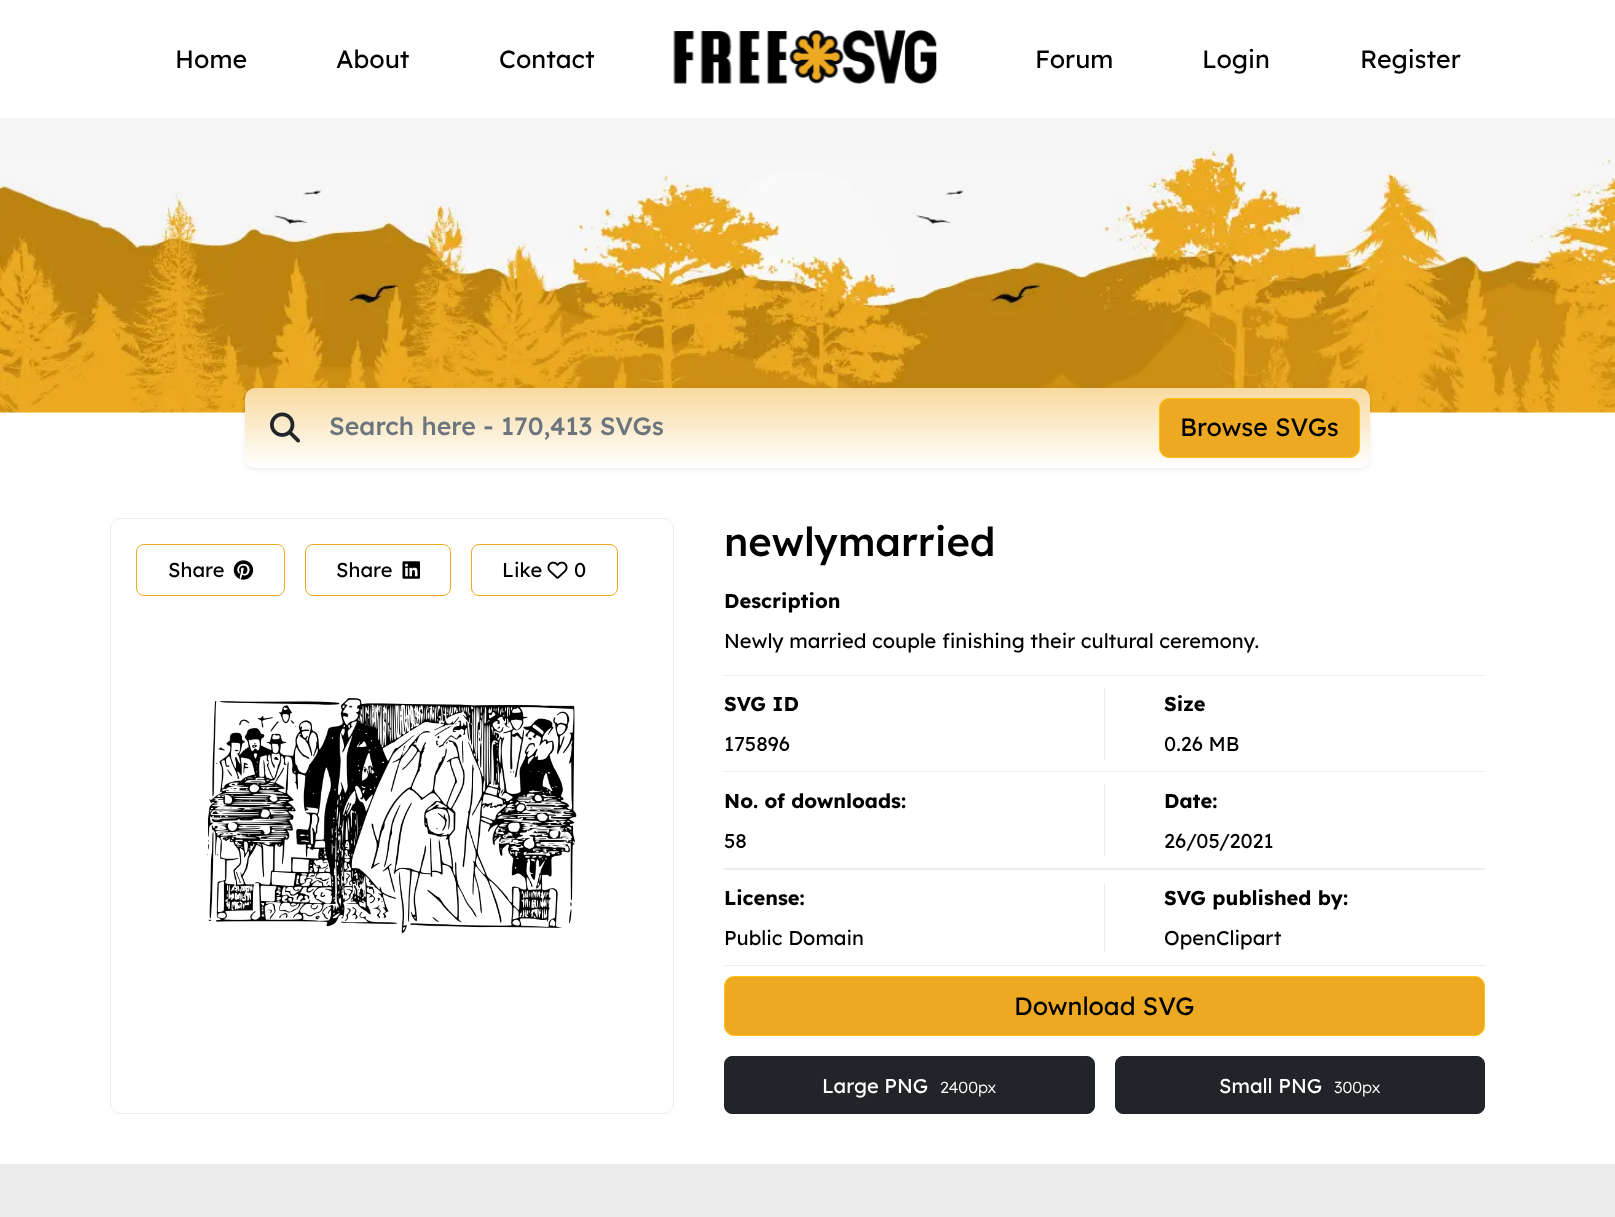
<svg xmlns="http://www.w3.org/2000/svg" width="1615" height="1217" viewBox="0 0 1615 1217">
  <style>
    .t1 { font: 25px Lexend; fill: #000; }
    .t2 { font: 500 25px Lexend; fill: #6c757d; }
    .t3 { font: 20px Lexend; fill: #000; }
    .t4 { font: 500 40px Lexend; fill: #000; }
    .t5 { font: bold 20px Lexend; fill: #000; }
    .t6 { font: 20px Lexend; fill: #fff; }
    .t7 { font: 300 16px Lexend; fill: #fff; }
  </style>
  <defs>
    <linearGradient id="g1" gradientUnits="userSpaceOnUse" x1="808" y1="468" x2="808" y2="283"><stop offset="0" stop-color="#fff"/><stop offset="1" stop-color="#eda922"/></linearGradient>
  </defs>
  <rect width="100%" height="100%" fill="#fff"/>
  <text x="175" y="68" class="t1">Home</text>
  <text x="336" y="68" class="t1">About</text>
  <text x="499" y="68" class="t1">Contact</text>
  <image x="673" y="30" width="264" height="54" href="images/1.png"/>
  <text x="1035" y="68" class="t1">Forum</text>
  <text x="1202" y="68" class="t1">Login</text>
  <text x="1360" y="68" class="t1">Register</text>
  <image x="0" y="118" width="1615" height="295" href="images/2.png"/>
  <rect x="245" y="390" width="1125" height="80" rx="10" fill="#00000012" filter="blur(2.5px)"/>
  <rect x="245" y="388" width="1125" height="80" rx="10" fill="url(#g1)"/>
  <image x="270" y="412" width="30" height="31" href="images/3.png"/>
  <text x="329" y="435" class="t2">Search here - 170,413 SVGs</text>
  <rect x="1159.5" y="398.5" width="200" height="59" rx="9.5" fill="#eda922" stroke="#ffc107"/>
  <text x="1180" y="436" class="t1">Browse SVGs</text>
  <rect x="110.5" y="518.5" width="563" height="595" rx="9.5" fill="none" stroke="#ececec"/>
  <rect x="136.5" y="544.5" width="148" height="51" rx="7.5" fill="none" stroke="#eda922"/>
  <text x="168" y="577" class="t3">Share</text>
  <image x="233" y="560" width="21" height="20" href="images/4.png"/>
  <rect x="305.5" y="544.5" width="145" height="51" rx="7.5" fill="none" stroke="#eda922"/>
  <text x="336" y="577" class="t3">Share</text>
  <image x="402" y="561" width="18" height="18" href="images/5.png"/>
  <rect x="471.5" y="544.5" width="146" height="51" rx="7.5" fill="none" stroke="#eda922"/>
  <text x="502" y="577" class="t3">Like</text>
  <image x="547" y="561" width="21" height="18" href="images/6.png"/>
  <text x="574" y="577" class="t3">0</text>
  <image x="207" y="698" width="370" height="235" href="images/7.png"/>
  <text x="724" y="556" class="t4">newlymarried</text>
  <text x="724" y="608" class="t5">Description</text>
  <text x="724" y="648" class="t3">Newly married couple finishing their cultural ceremony.</text>
  <rect x="724" y="675" width="761" height="1" fill="#ececec"/>
  <rect x="1104" y="689" width="1" height="70" fill="#ececec"/>
  <text x="724" y="711" class="t5">SVG ID</text>
  <text x="724" y="751" class="t3">175896</text>
  <text x="1164" y="711" class="t5">Size</text>
  <text x="1164" y="751" class="t3">0.26 MB</text>
  <rect x="724" y="771" width="761" height="1" fill="#ececec"/>
  <rect x="724" y="868" width="761" height="2" fill="#ececec"/>
  <rect x="1104" y="785" width="1" height="70" fill="#ececec"/>
  <text x="724" y="808" class="t5">No. of downloads:</text>
  <text x="724" y="848" class="t3">58</text>
  <text x="1164" y="808" class="t5">Date:</text>
  <text x="1164" y="848" class="t3">26/05/2021</text>
  <rect x="724" y="965" width="761" height="1" fill="#ececec"/>
  <rect x="1104" y="883" width="1" height="70" fill="#ececec"/>
  <text x="724" y="905" class="t5">License:</text>
  <text x="724" y="945" class="t3">Public Domain</text>
  <text x="1164" y="905" class="t5">SVG published by:</text>
  <text x="1164" y="945" class="t3">OpenClipart</text>
  <rect x="724.5" y="976.5" width="760" height="59" rx="9.5" fill="#eda922" stroke="#ffc107"/>
  <text x="1014" y="1015" class="t1">Download SVG</text>
  <rect x="724.5" y="1056.5" width="370" height="57" rx="7.5" fill="#212529" stroke="#212529"/>
  <text x="822" y="1093" class="t6">Large PNG</text>
  <text x="940" y="1093" class="t7">2400px</text>
  <rect x="1115.5" y="1056.5" width="369" height="57" rx="7.5" fill="#212529" stroke="#212529"/>
  <text x="1219" y="1093" class="t6">Small PNG</text>
  <text x="1334" y="1093" class="t7">300px</text>
  <rect x="0" y="1164" width="1615" height="53" fill="#ebebeb"/>
</svg>
